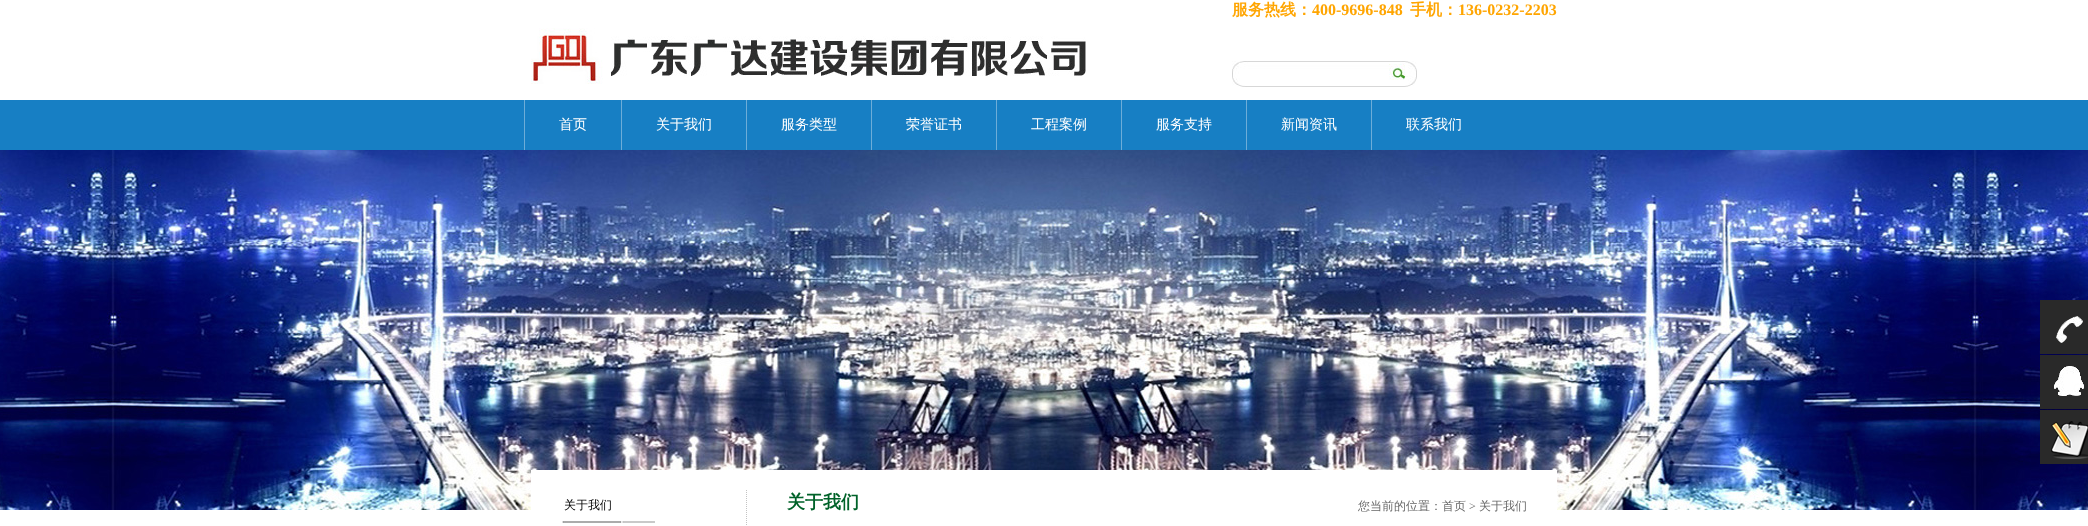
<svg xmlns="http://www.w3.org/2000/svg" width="2088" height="526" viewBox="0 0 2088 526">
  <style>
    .t1 { font: bold 16px WenQuanYi Zen Hei; fill: #ffa500; }
    .t2 { font: bold 16px Liberation Serif; fill: #ffa500; }
    .t3 { font: 500 14px WenQuanYi Zen Hei; fill: #fff; }
    .t4 { font: 500 12px WenQuanYi Zen Hei; fill: #000; }
    .t5 { font: bold 18px WenQuanYi Zen Hei; fill: #006229; }
    .t6 { font: 500 12px WenQuanYi Zen Hei; fill: #696969; }
    .t7 { font: 12px Liberation Serif; fill: #696969; }
  </style>
  <rect width="100%" height="100%" fill="#fff"/>
  <text x="1232" y="15" class="t1">服务热线：</text>
  <text x="1312" y="15" class="t2">400-9696-848</text>
  <text x="1410" y="15" class="t1">手机：</text>
  <text x="1458" y="15" class="t2">136-0232-2203</text>
  <image x="1232" y="61" width="185" height="26" href="images/1.png"/>
  <rect x="1239" y="63" width="5" height="4" fill="#fff"/>
  <image x="1389" y="64" width="19" height="19" href="images/2.png"/>
  <image x="531" y="28" width="555" height="56" href="images/3.png"/>
  <rect x="0" y="100" width="2088" height="50" fill="#177fc4"/>
  <rect x="524" y="100" width="1" height="50" fill="#6dadd8"/>
  <text x="559" y="129" class="t3">首页</text>
  <rect x="621" y="100" width="1" height="50" fill="#6dadd8"/>
  <text x="656" y="129" class="t3">关于我们</text>
  <rect x="746" y="100" width="1" height="50" fill="#6dadd8"/>
  <text x="781" y="129" class="t3">服务类型</text>
  <rect x="871" y="100" width="1" height="50" fill="#6dadd8"/>
  <text x="906" y="129" class="t3">荣誉证书</text>
  <rect x="996" y="100" width="1" height="50" fill="#6dadd8"/>
  <text x="1031" y="129" class="t3">工程案例</text>
  <rect x="1121" y="100" width="1" height="50" fill="#6dadd8"/>
  <text x="1156" y="129" class="t3">服务支持</text>
  <rect x="1246" y="100" width="1" height="50" fill="#6dadd8"/>
  <text x="1281" y="129" class="t3">新闻资讯</text>
  <rect x="1371" y="100" width="1" height="50" fill="#6dadd8"/>
  <text x="1406" y="129" class="t3">联系我们</text>
  <image x="0" y="150" width="2088" height="360" href="images/4.png"/>
  <rect x="2040" y="300" width="48" height="54" fill="#292929"/>
  <image x="2056" y="316" width="27" height="27" href="images/5.png"/>
  <rect x="2040" y="355" width="48" height="54" fill="#292929"/>
  <image x="2054" y="366" width="30" height="30" href="images/6.png"/>
  <rect x="2040" y="410" width="48" height="54" fill="#292929"/>
  <image x="2051" y="421" width="37" height="38" href="images/7.png"/>
  <rect x="531" y="470" width="1026" height="40" fill="#fff"/>
  <image x="562" y="521" width="93" height="2" href="images/8.png"/>
  <text x="564" y="509" class="t4">关于我们</text>
  <path d="M746.5 490V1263" fill="none" stroke="#c3c3c3" stroke-dasharray="1 1"/>
  <text x="787" y="508" class="t5">关于我们</text>
  <text x="1358" y="510" class="t6">您当前的位置：首页</text>
  <text x="1469" y="510" class="t7">&gt;</text>
  <text x="1479" y="510" class="t6">关于我们</text>
</svg>
